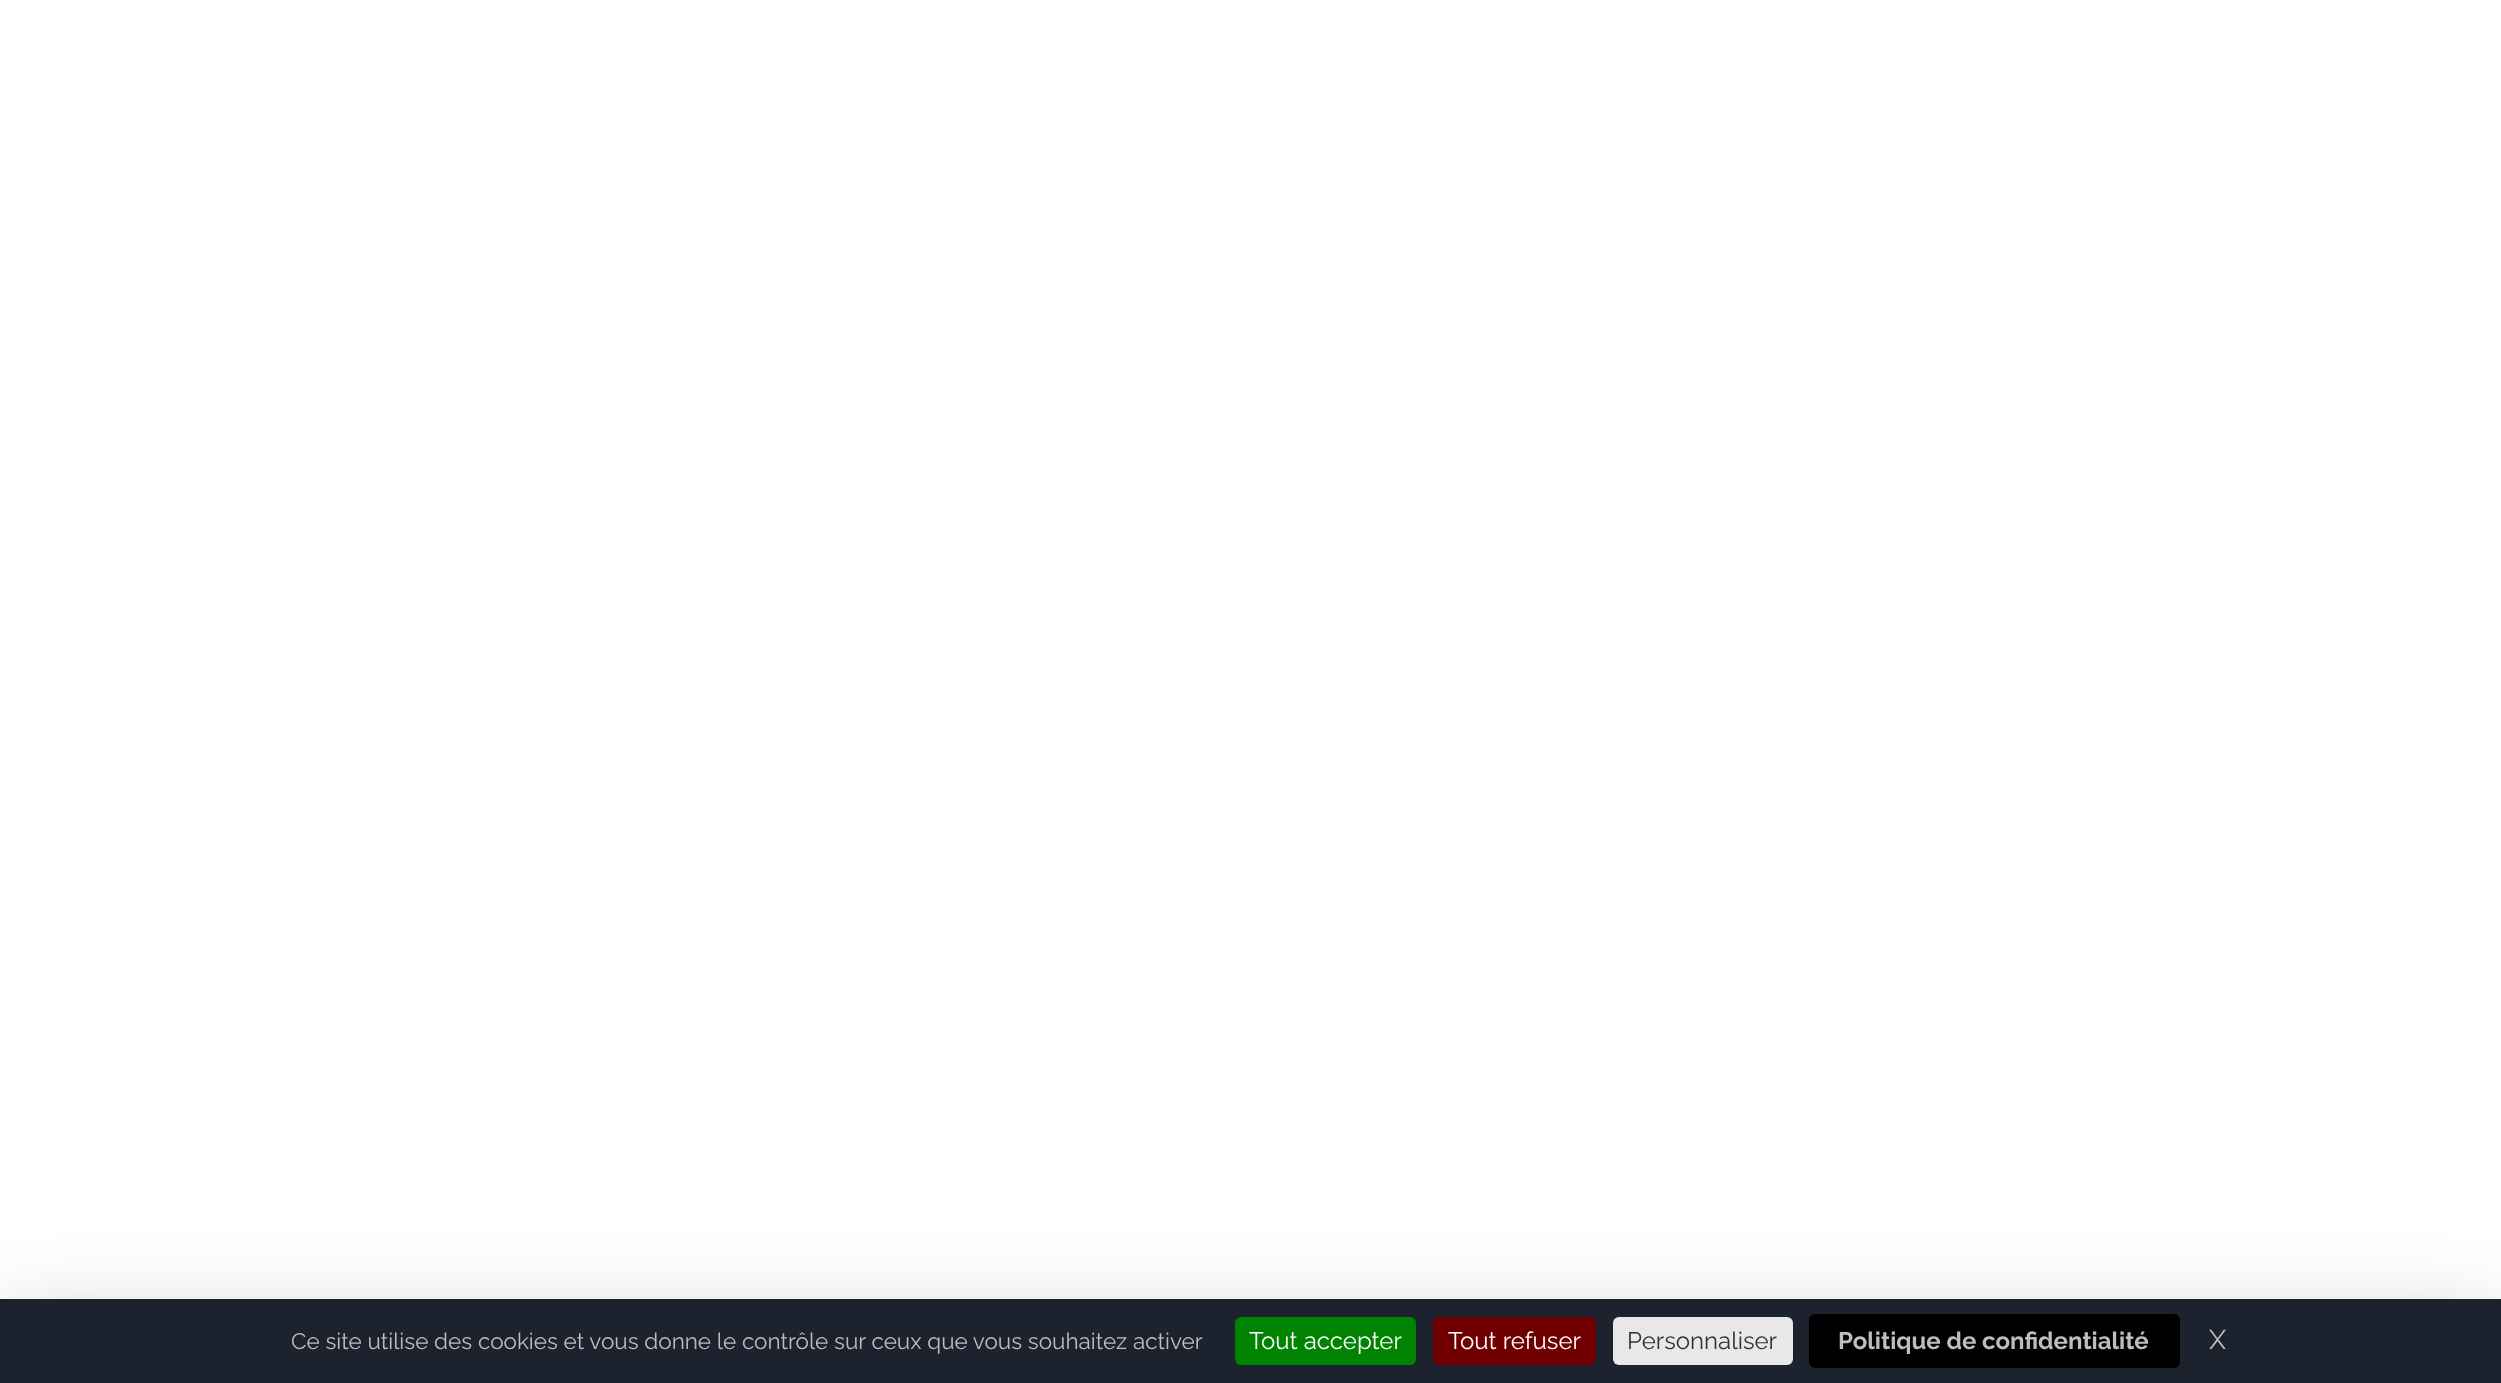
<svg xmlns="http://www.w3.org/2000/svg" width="2501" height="1383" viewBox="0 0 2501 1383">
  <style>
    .t1 { font: 22.5px Raleway; fill: #bdbdbd; }
    .t2 { font: 24px Raleway; fill: #fff; }
    .t3 { font: 24px Raleway; fill: #333; }
    .t4 { font: bold 24px Raleway; fill: #bdbdbd; }
    .t5 { font: 27px Raleway; fill: #bdbdbd; }
  </style>
  <rect width="100%" height="100%" fill="#fff"/>
  <rect x="0" y="1329" width="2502" height="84" fill="#00000040" filter="blur(45px)"/>
  <rect x="0" y="1299" width="2501" height="84" fill="#1d232e"/>
  <text x="291" y="1349" class="t1">Ce site utilise des cookies et vous donne le contrôle sur ceux que vous souhaitez activer</text>
  <rect x="1235" y="1317" width="181" height="48" rx="6" fill="#008300"/>
  <text x="1249" y="1349" class="t2">Tout accepter</text>
  <rect x="1433" y="1317" width="163" height="48" rx="6" fill="#700000"/>
  <text x="1448" y="1349" class="t2">Tout refuser</text>
  <rect x="1613" y="1317" width="180" height="48" rx="6" fill="#e8e8e8"/>
  <text x="1627" y="1349" class="t3">Personnaliser</text>
  <rect x="1809" y="1314" width="371" height="54" rx="6" fill="#000"/>
  <text x="1838" y="1349" class="t4">Politique de confidentialité</text>
  <text x="2209" y="1349" class="t5">X</text>
</svg>
